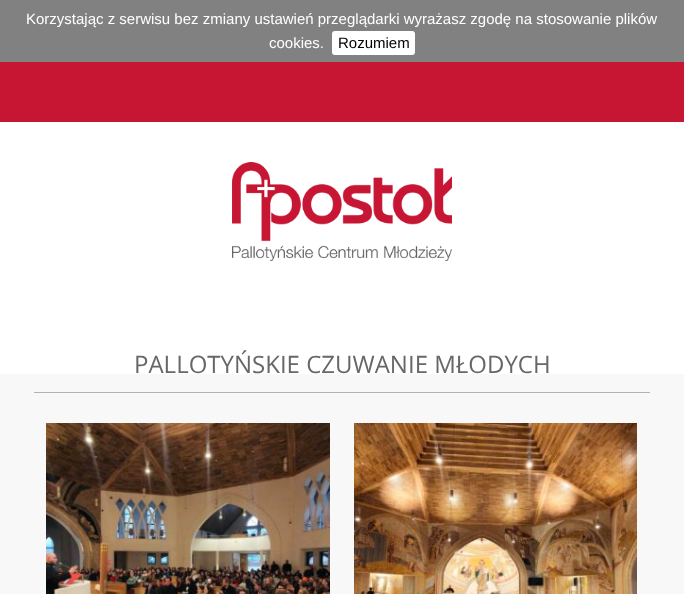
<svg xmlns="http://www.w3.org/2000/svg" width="684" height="594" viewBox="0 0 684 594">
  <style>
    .t1 { font: 15px Liberation Sans; fill: #fff; }
    .t2 { font: 15px Liberation Sans; fill: #000; }
    .t3 { font: 24px Open Sans; fill: #676767; }
  </style>
  <rect width="100%" height="100%" fill="#fff"/>
  <rect x="0" y="0" width="684" height="62" fill="#818181"/>
  <text x="26" y="24" class="t1">Korzystając z serwisu bez zmiany ustawień przeglądarki wyrażasz zgodę na stosowanie plików</text>
  <text x="269" y="48" class="t1">cookies.</text>
  <rect x="332" y="31" width="83" height="24" rx="3" fill="#fff"/>
  <text x="338" y="48" class="t2">Rozumiem</text>
  <rect x="0" y="62" width="684" height="60" fill="#c61633"/>
  <rect x="0" y="374" width="684" height="220" fill="#f8f8f8"/>
  <image x="232" y="162" width="220" height="99" href="images/1.png"/>
  <rect x="34" y="392" width="616" height="1" fill="#b2b2b2"/>
  <text x="134" y="373" class="t3">PALLOTYŃSKIE CZUWANIE MŁODYCH</text>
  <image x="46" y="423" width="284" height="171" href="images/2.png"/>
  <image x="354" y="423" width="283" height="171" href="images/3.png"/>
</svg>
